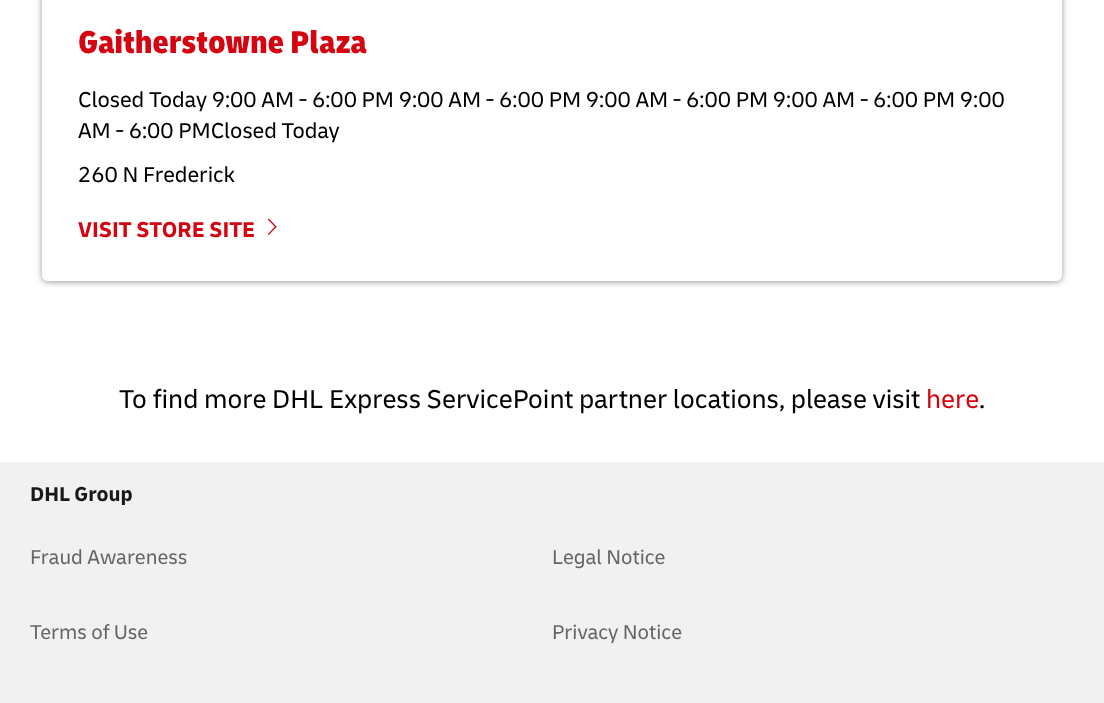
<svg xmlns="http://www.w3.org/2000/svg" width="1104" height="703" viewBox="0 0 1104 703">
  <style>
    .t1 { font: 800 33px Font; fill: #d40511; }
    .t2 { font: 22.5px Font; fill: #000; }
    .t3 { font: bold 22.5px Font; fill: #d40511; }
    .t4 { font: 27px Font; fill: #000; }
    .t5 { font: 27px Font; fill: #d40511; }
    .t6 { font: bold 21px Font; fill: #191919; }
    .t7 { font: 21px Font; fill: #666; }
  </style>
  <defs>
    <clipPath id="clip1"><path d="M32 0H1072V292H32ZM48-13H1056C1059.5-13 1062-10.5 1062-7V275C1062 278.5 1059.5 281 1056 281H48C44.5 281 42 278.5 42 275V-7C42-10.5 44.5-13 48-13Z" clip-rule="evenodd"/></clipPath>
  </defs>
  <rect width="100%" height="100%" fill="#fff"/>
  <g clip-path="url(#clip1)">
    <rect x="42" y="-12" width="1020" height="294" rx="6" fill="#32323280" filter="blur(3px)"/>
  </g>
  <text x="78" y="53" class="t1">Gaitherstowne Plaza</text>
  <text x="78" y="107" class="t2">Closed Today 9:00 AM - 6:00 PM 9:00 AM - 6:00 PM 9:00 AM - 6:00 PM 9:00 AM - 6:00 PM 9:00</text>
  <text x="78" y="138" class="t2">AM - 6:00 PMClosed Today</text>
  <text x="78" y="182" class="t2">260 N Frederick</text>
  <text x="78" y="237" class="t3">VISIT STORE SITE</text>
  <image x="267" y="218" width="10" height="17" href="images/1.png"/>
  <text x="119" y="408" class="t4">To find more DHL Express ServicePoint partner locations, please visit</text>
  <text x="926" y="408" class="t5">here</text>
  <text x="979" y="408" class="t4">.</text>
  <rect x="0" y="462" width="1104" height="241" fill="#f1f1f1"/>
  <text x="30" y="501" class="t6">DHL Group</text>
  <text x="30" y="564" class="t7">Fraud Awareness</text>
  <text x="552" y="564" class="t7">Legal Notice</text>
  <text x="30" y="639" class="t7">Terms of Use</text>
  <text x="552" y="639" class="t7">Privacy Notice</text>
</svg>
